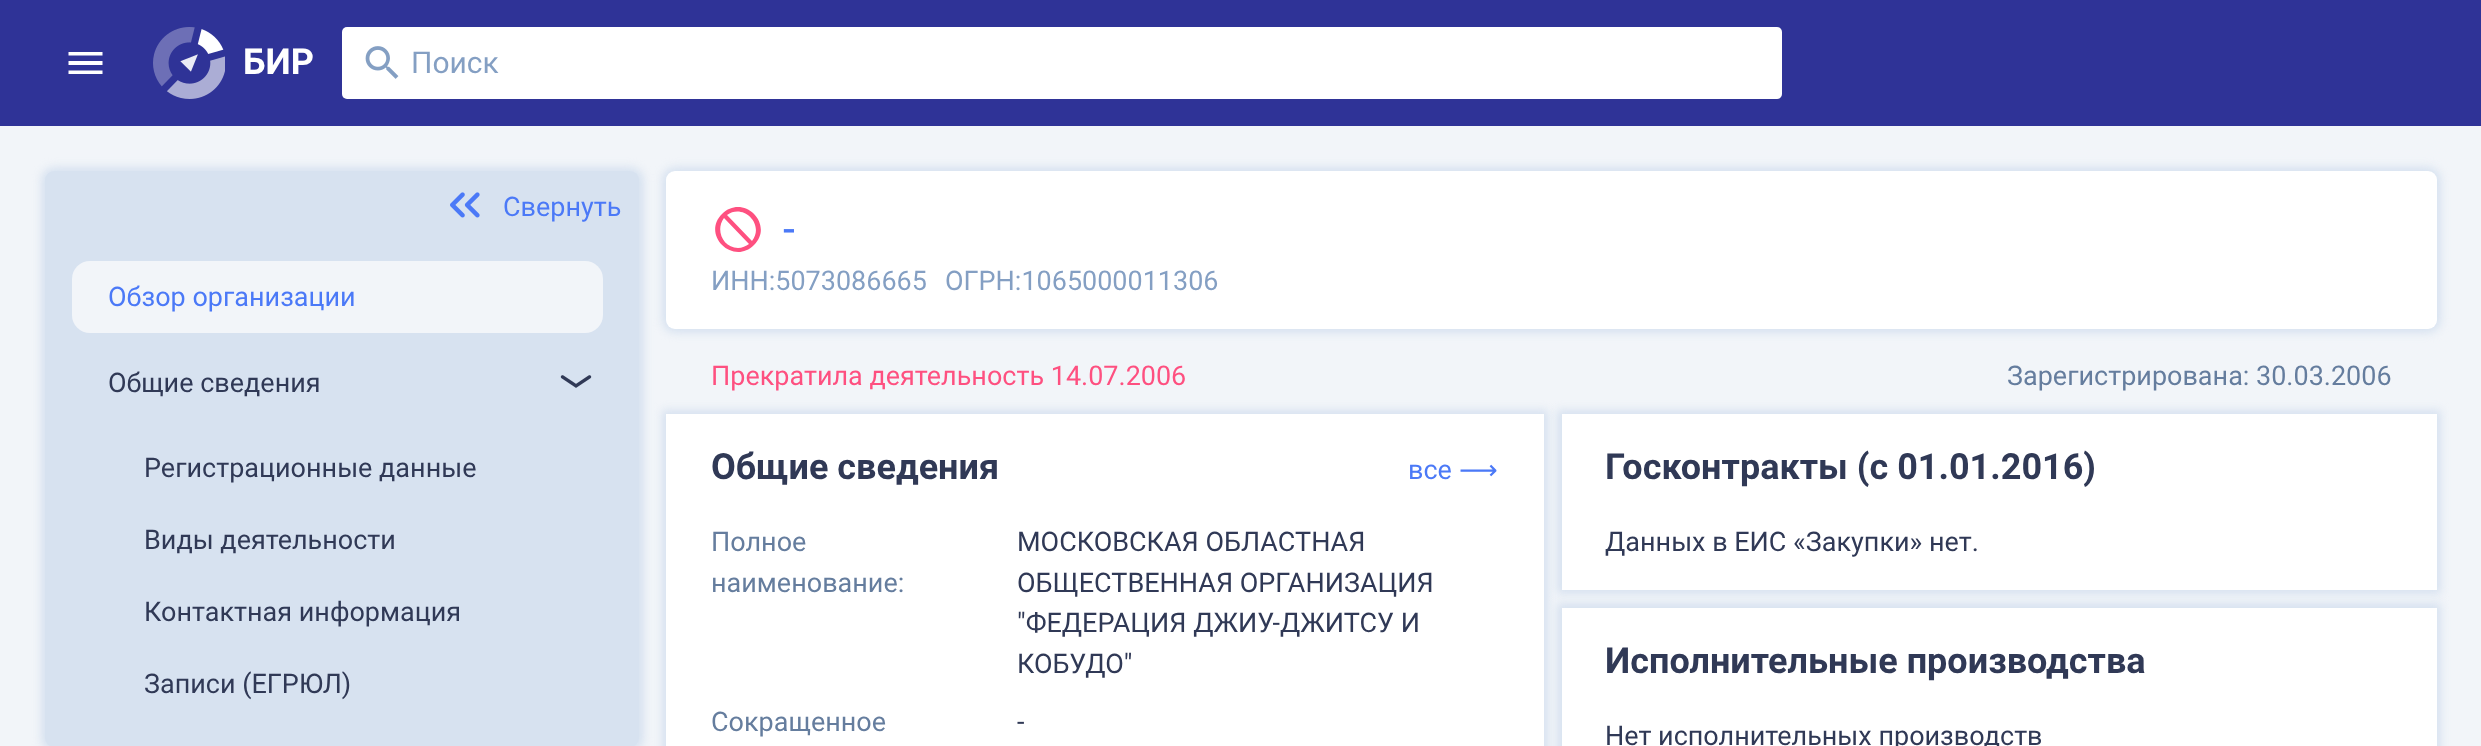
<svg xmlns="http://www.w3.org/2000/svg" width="2481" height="746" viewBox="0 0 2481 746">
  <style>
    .t1 { font: bold 36px Roboto; fill: #fff; }
    .t2 { font: 30px Roboto; fill: #849fc3; }
    .t3 { font: 27px Roboto; fill: #4b79f7; }
    .t4 { font: 27px Roboto; fill: #303956; }
    .t5 { font: 47px Roboto; letter-spacing: -1px; fill: #4b79f7; }
    .t6 { font: 27px Roboto; fill: #849fc3; }
    .t7 { font: 27px Roboto; fill: #fe5080; }
    .t8 { font: 27px Roboto; fill: #657d9e; }
    .t9 { font: bold 36px Roboto; fill: #303956; }
    .t10 { font: 27px DejaVu Sans; fill: #4b79f7; }
  </style>
  <defs>
    <clipPath id="clip1"><rect x="783" y="198" width="11" height="63"/></clipPath>
  </defs>
  <rect width="100%" height="100%" fill="#f2f5f9"/>
  <rect x="0" y="0" width="2481" height="126" fill="#2f3397"/>
  <path d="M68.5 52H102.5V55.5H68.5ZM68.5 65V61H102.5V65ZM68.5 74V70.5H102.5V74Z" fill="#fff"/>
  <image x="153" y="27" width="72" height="72" href="images/1.png"/>
  <text x="243" y="74" class="t1">БИР</text>
  <rect x="342" y="27" width="1440" height="72" rx="5" fill="#fff"/>
  <image x="365" y="46" width="34" height="33" href="images/2.png"/>
  <text x="411" y="73" class="t2">Поиск</text>
  <rect x="41" y="167" width="603" height="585" rx="14" fill="#d7e2f0" filter="blur(4.5px)"/>
  <rect x="45" y="171" width="594" height="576" rx="9" fill="#d7e2f0"/>
  <image x="450" y="192" width="30" height="26" href="images/3.png"/>
  <text x="503" y="216" class="t3">Свернуть</text>
  <rect x="72" y="261" width="531" height="72" rx="18" fill="#f2f5f9"/>
  <text x="108" y="306" class="t3">Обзор организации</text>
  <text x="108" y="392" class="t4">Общие сведения</text>
  <image x="560" y="375" width="32" height="13" href="images/4.png"/>
  <text x="144" y="477" class="t4">Регистрационные данные</text>
  <text x="144" y="549" class="t4">Виды деятельности</text>
  <text x="144" y="621" class="t4">Контактная информация</text>
  <text x="144" y="693" class="t4">Записи (ЕГРЮЛ)</text>
  <rect x="662" y="167" width="1779" height="166" rx="14" fill="#d7e2f0" filter="blur(4.5px)"/>
  <rect x="666" y="171" width="1771" height="158" rx="9" fill="#fff"/>
  <path d="M752 241C765 224 743 203 727 215ZM738 248C742 248 746 246 749 244L724 218C715 230 723 248 738 248ZM722 214C743 193 775 224 754 245C733 266 701 235 722 214Z" fill="#fe5080"/>
  <g clip-path="url(#clip1)">
    <text x="783" y="245" class="t5">-</text>
  </g>
  <text x="711" y="290" class="t6">ИНН:5073086665</text>
  <text x="945" y="290" class="t6">ОГРН:1065000011306</text>
  <text x="711" y="385" class="t7">Прекратила деятельность 14.07.2006</text>
  <text x="2007" y="385" class="t8">Зарегистрирована: 30.03.2006</text>
  <rect x="662" y="410" width="886" height="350" fill="#d7e2f0" filter="blur(4.5px)"/>
  <rect x="666" y="414" width="878" height="332" fill="#fff"/>
  <text x="711" y="479" class="t9">Общие сведения</text>
  <text x="1408" y="479" class="t3">все</text>
  <text x="1459" y="479" class="t10">⟶</text>
  <text x="711" y="551" class="t8">Полное</text>
  <text x="711" y="592" class="t8">наименование:</text>
  <text x="1017" y="551" class="t4">МОСКОВСКАЯ ОБЛАСТНАЯ</text>
  <text x="1017" y="592" class="t4">ОБЩЕСТВЕННАЯ ОРГАНИЗАЦИЯ</text>
  <text x="1017" y="632" class="t4">"ФЕДЕРАЦИЯ ДЖИУ-ДЖИТСУ И</text>
  <text x="1017" y="673" class="t4">КОБУДО"</text>
  <text x="711" y="731" class="t8">Сокращенное</text>
  <text x="1017" y="731" class="t4">-</text>
  <rect x="1557" y="410" width="884" height="184" fill="#d7e2f0" filter="blur(4.5px)"/>
  <rect x="1562" y="414" width="875" height="176" fill="#fff"/>
  <text x="1605" y="479" class="t9">Госконтракты (с 01.01.2016)</text>
  <text x="1605" y="551" class="t4">Данных в ЕИС «Закупки» нет.</text>
  <rect x="1557" y="603" width="884" height="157" fill="#d7e2f0" filter="blur(4.5px)"/>
  <rect x="1562" y="608" width="875" height="138" fill="#fff"/>
  <text x="1605" y="673" class="t9">Исполнительные производства</text>
  <text x="1605" y="745" class="t4">Нет исполнительных производств</text>
</svg>
